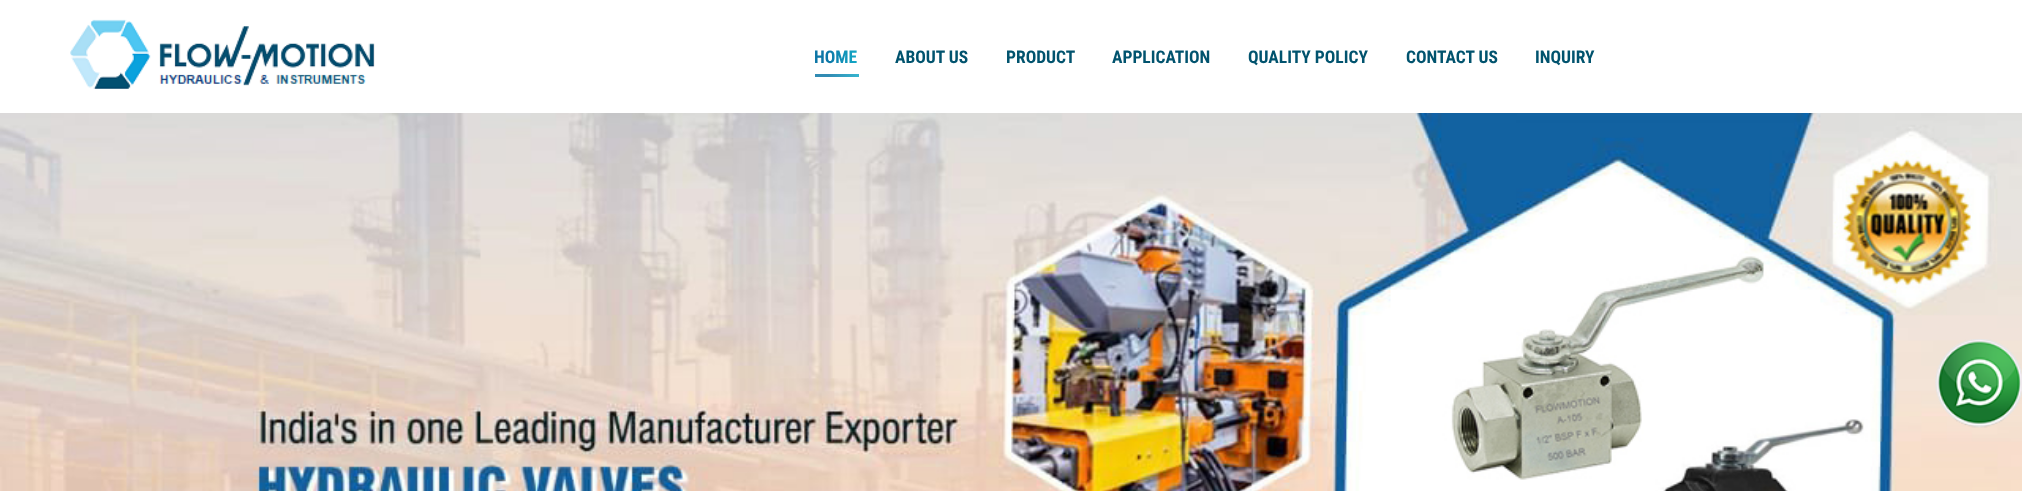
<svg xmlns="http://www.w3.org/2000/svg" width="2022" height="491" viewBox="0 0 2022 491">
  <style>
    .t1 { font: bold 17.5px Roboto Condensed; fill: url(#g1); }
    .t2 { font: bold 17.5px Roboto Condensed; fill: #01536e; }
  </style>
  <defs>
    <linearGradient id="g1" gradientUnits="userSpaceOnUse" x1="814" y1="56" x2="857" y2="56"><stop offset="0.3" stop-color="#0d76a6"/><stop offset="1" stop-color="#13a8c6"/></linearGradient>
    <linearGradient id="g2" gradientUnits="userSpaceOnUse" x1="815" y1="75" x2="859" y2="75"><stop offset="0.3" stop-color="#318bb3"/><stop offset="1" stop-color="#36b5cf"/></linearGradient>
  </defs>
  <rect width="100%" height="100%" fill="#fff"/>
  <image x="70" y="19" width="305" height="70" href="images/1.png"/>
  <text x="814" y="63" class="t1">HOME</text>
  <rect x="815" y="74" width="44" height="3" fill="url(#g2)"/>
  <text x="895" y="63" class="t2">ABOUT US</text>
  <text x="1006" y="63" class="t2">PRODUCT</text>
  <text x="1112" y="63" class="t2">APPLICATION</text>
  <text x="1248" y="63" class="t2">QUALITY POLICY</text>
  <text x="1406" y="63" class="t2">CONTACT US</text>
  <text x="1535" y="63" class="t2">INQUIRY</text>
  <image x="0" y="113" width="2022" height="378" href="images/2.png"/>
  <image x="1935" y="339" width="87" height="89" href="images/3.png"/>
</svg>
